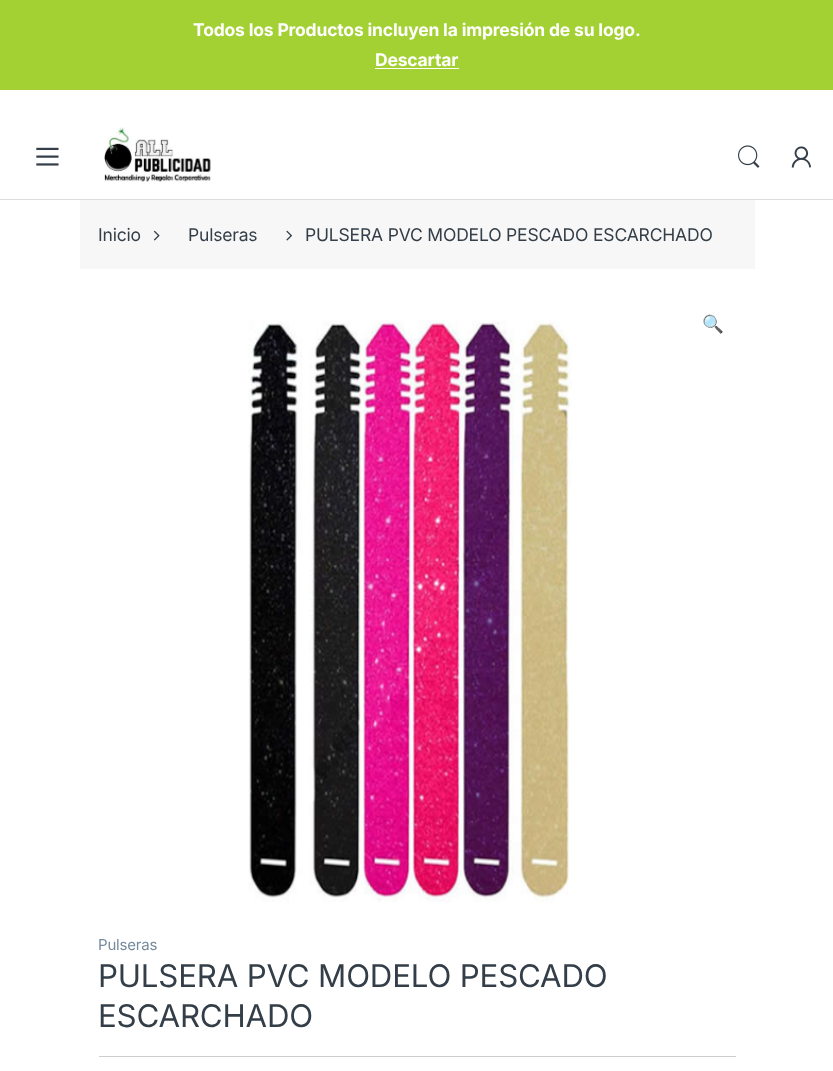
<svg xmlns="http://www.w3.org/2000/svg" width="833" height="1071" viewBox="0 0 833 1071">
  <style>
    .t1 { font: bold 17.5px Inter; letter-spacing: -0.18px; fill: #fff; }
    .t2 { font: 17.5px Inter; letter-spacing: -0.18px; fill: #333e48; }
    .t3 { font: 17.5px Noto Color Emoji; letter-spacing: -0.18px; fill: #333e48; }
    .t4 { font: 15px Inter; letter-spacing: -0.18px; fill: #768b9e; }
    .t5 { font: 31.25px Inter; letter-spacing: -0.18px; fill: #333e48; }
  </style>
  <rect width="100%" height="100%" fill="#fff"/>
  <rect x="0" y="0" width="833" height="90" fill="#a3d133"/>
  <text x="193" y="36" class="t1">Todos los Productos incluyen la impresión de su logo.</text>
  <text x="375" y="66" class="t1">Descartar</text>
  <rect x="375" y="68" width="84" height="1" fill="#fff"/>
  <rect x="0" y="199" width="833" height="1" fill="#ddd"/>
  <image x="36" y="147" width="23" height="19" href="images/1.png"/>
  <image x="104" y="127" width="107" height="55" href="images/2.png"/>
  <image x="738" y="145" width="22" height="23" href="images/3.png"/>
  <image x="791" y="146" width="20" height="22" href="images/4.png"/>
  <rect x="80" y="200" width="675" height="69" fill="#f7f7f7"/>
  <text x="98" y="241" class="t2">Inicio</text>
  <image x="153" y="230" width="7" height="11" href="images/5.png"/>
  <text x="188" y="241" class="t2">Pulseras</text>
  <image x="286" y="230" width="6" height="11" href="images/6.png"/>
  <text x="305" y="241" class="t2">PULSERA PVC MODELO PESCADO ESCARCHADO</text>
  <image x="248" y="320" width="324" height="583" href="images/7.png"/>
  <text x="702" y="330" class="t3">🔍</text>
  <text x="98" y="950" class="t4">Pulseras</text>
  <text x="98" y="987" class="t5">PULSERA PVC MODELO PESCADO</text>
  <text x="98" y="1027" class="t5">ESCARCHADO</text>
  <rect x="99" y="1056" width="637" height="1" fill="#cccfd1"/>
</svg>
